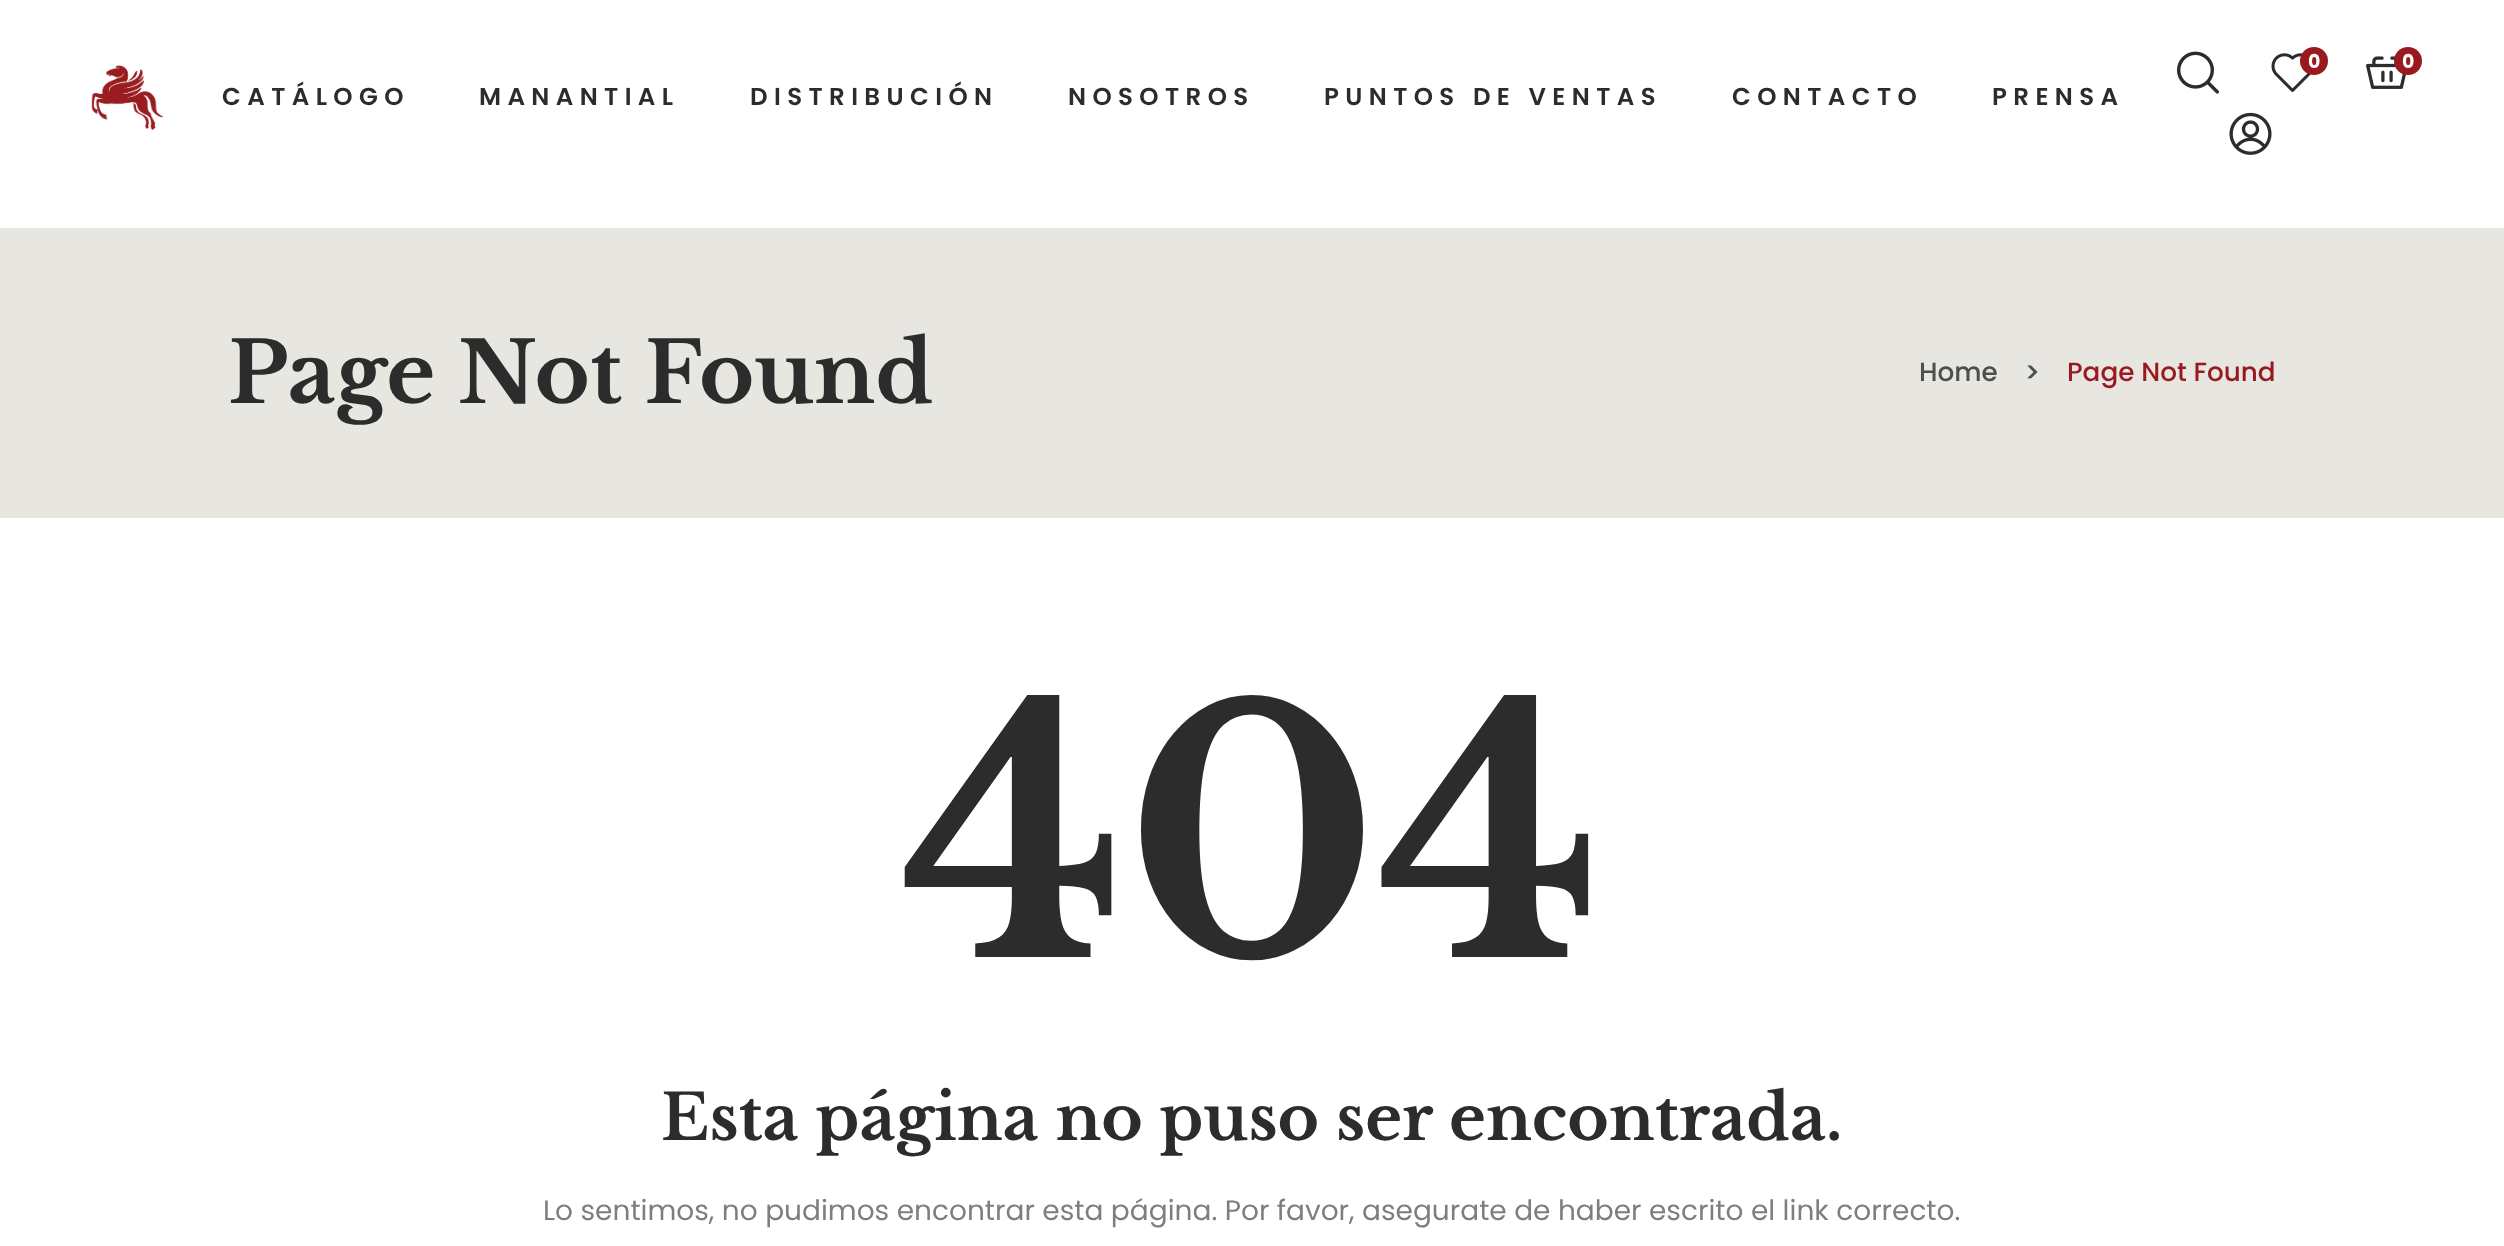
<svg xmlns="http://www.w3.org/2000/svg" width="2504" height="1246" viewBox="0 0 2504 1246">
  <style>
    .t1 { font: bold 19px Poppins; fill: #fff; }
    .t2 { font: 600 24.5px Poppins; letter-spacing: 6.4px; fill: #2c2c2c; }
    .t3 { font: bold 84px Libre Baskerville; fill: #2c2c2c; }
    .t4 { font: 500 26.25px Poppins; fill: #4e4e4c; }
    .t5 { font: 500 28px Poppins; fill: #4e4e4c; }
    .t6 { font: 500 26.25px Poppins; fill: #99191e; }
    .t7 { font: bold 336px Libre Baskerville; fill: #2c2c2c; }
    .t8 { font: bold 63px Libre Baskerville; fill: #2c2c2c; }
    .t9 { font: 28px Poppins; fill: #7e7e7e; }
  </style>
  <rect width="100%" height="100%" fill="#fff"/>
  <image x="2177" y="51" width="42" height="43" href="images/1.png"/>
  <image x="2271" y="53" width="40" height="39" href="images/2.png"/>
  <circle cx="2314" cy="61" r="14" fill="#99191e"/>
  <text x="2308" y="68" class="t1">0</text>
  <image x="2366" y="56" width="40" height="33" href="images/3.png"/>
  <circle cx="2408" cy="61" r="14" fill="#99191e"/>
  <text x="2402" y="68" class="t1">0</text>
  <image x="2229" y="112" width="43" height="43" href="images/4.png"/>
  <image x="91" y="65" width="73" height="65" href="images/5.png"/>
  <text x="222" y="105" class="t2">CATÁLOGO</text>
  <text x="479" y="105" class="t2">MANANTIAL</text>
  <text x="750" y="105" class="t2">DISTRIBUCIÓN</text>
  <text x="1068" y="105" class="t2">NOSOTROS</text>
  <text x="1324" y="105" class="t2">PUNTOS DE VENTAS</text>
  <text x="1732" y="105" class="t2">CONTACTO</text>
  <text x="1992" y="105" class="t2">PRENSA</text>
  <rect x="0" y="228" width="2504" height="290" fill="#e7e6e0"/>
  <text x="228" y="403" class="t3">Page Not Found</text>
  <text x="1919" y="381" class="t4">Home</text>
  <text x="2024" y="382" class="t5">&gt;</text>
  <text x="2067" y="381" class="t6">Page Not Found</text>
  <text x="902" y="957" class="t7">404</text>
  <text x="661" y="1140" class="t8">Esta página no puso ser encontrada.</text>
  <text x="543" y="1220" class="t9">Lo sentimos, no pudimos encontrar esta página. Por favor, asegurate de haber escrito el link correcto.</text>
</svg>
